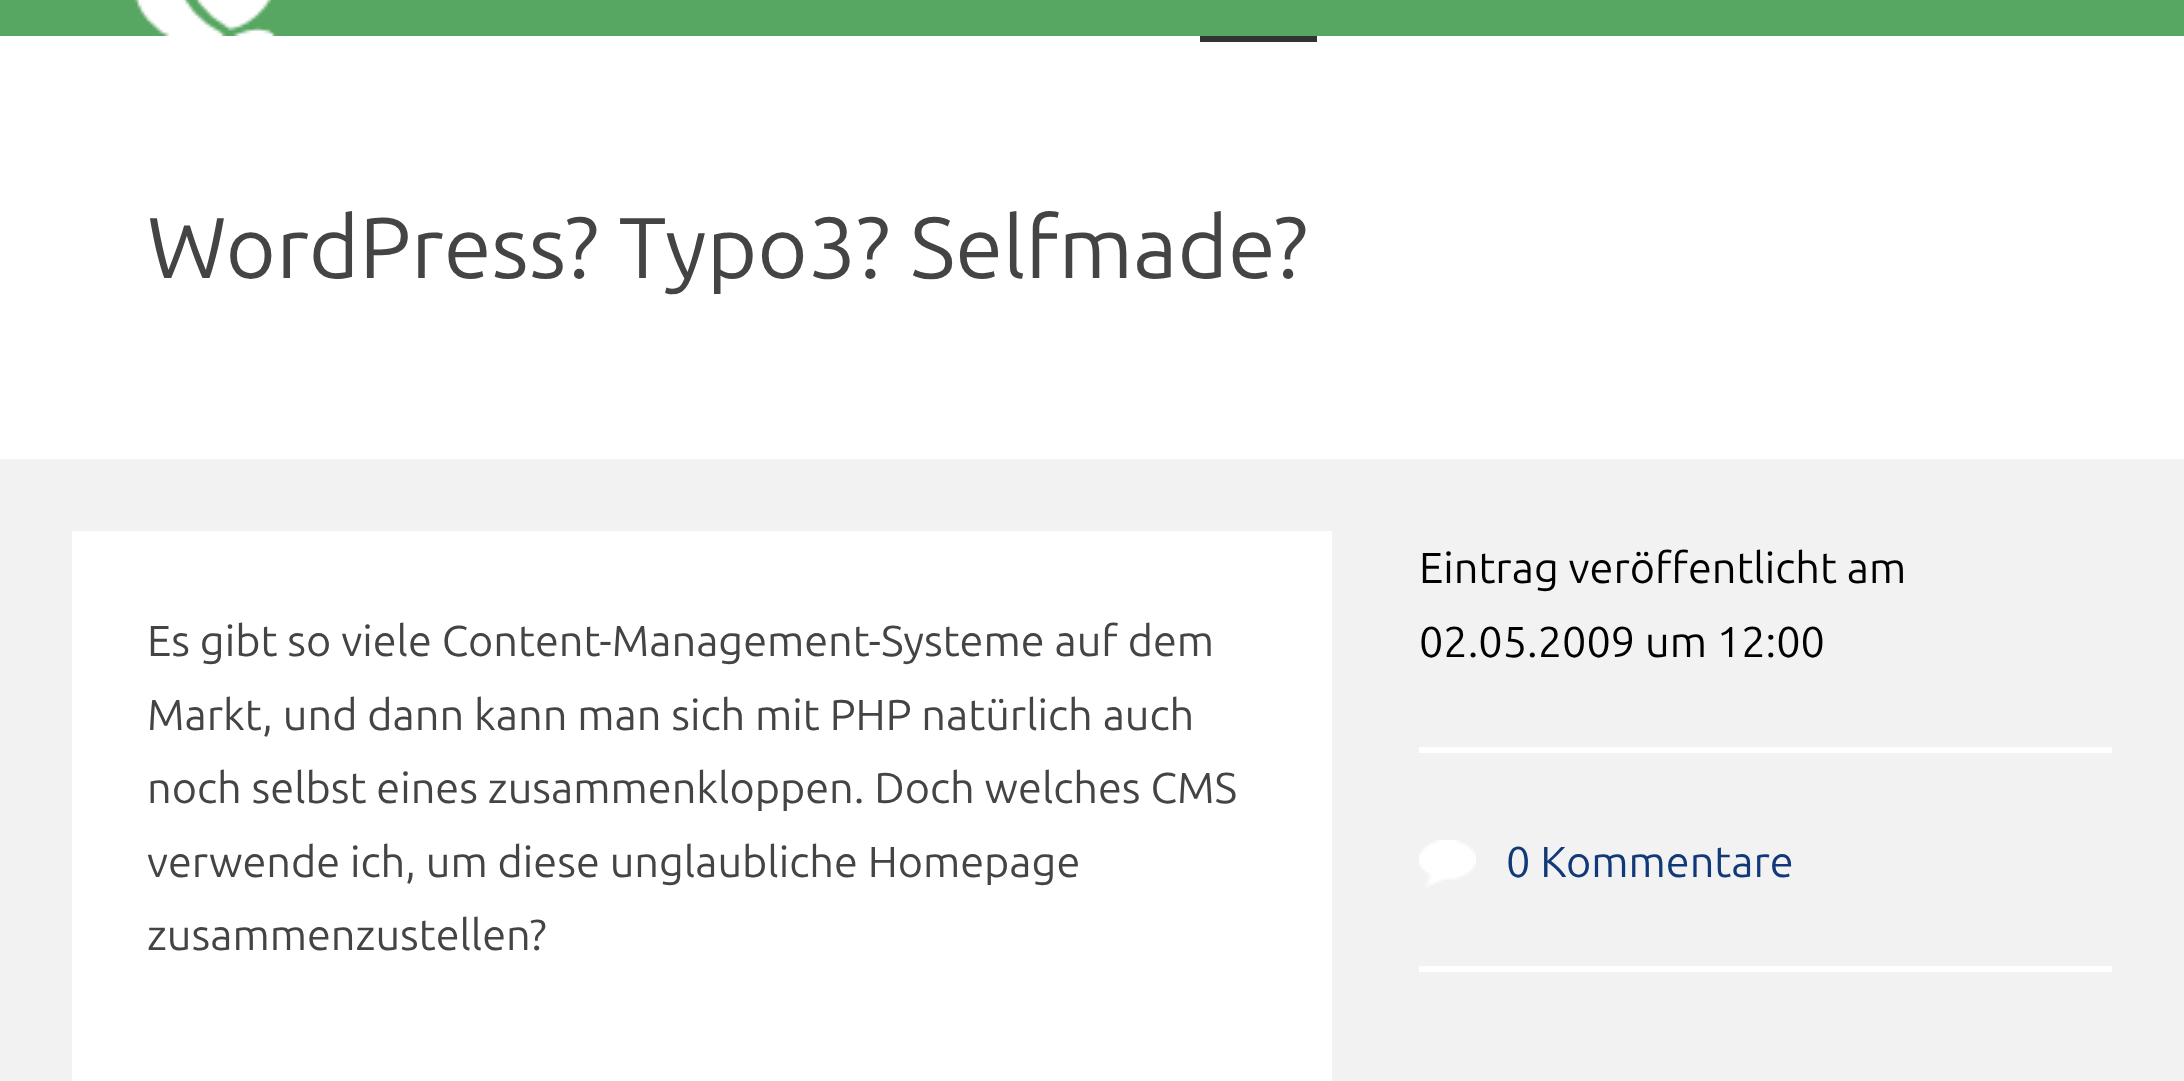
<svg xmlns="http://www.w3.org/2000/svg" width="2184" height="1081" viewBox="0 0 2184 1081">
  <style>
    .t1 { font: 86.4px Ubuntu; fill: #444; }
    .t2 { font: 43.2px Ubuntu; fill: #444; }
    .t3 { font: 43.2px Ubuntu; fill: #000; }
    .t4 { font: 43.2px Ubuntu; fill: #113879; }
  </style>
  <rect width="100%" height="100%" fill="#f2f2f2"/>
  <rect x="0" y="0" width="2184" height="36" fill="#57a662"/>
  <image x="134" y="0" width="143" height="36" href="images/1.png"/>
  <rect x="0" y="36" width="2184" height="423" fill="#fff"/>
  <rect x="1200" y="36" width="117" height="6" fill="#333"/>
  <text x="147" y="278" class="t1">WordPress? Typo3? Selfmade?</text>
  <rect x="72" y="531" width="1260" height="550" fill="#fff"/>
  <text x="147" y="656" class="t2">Es gibt so viele Content-Management-Systeme auf dem</text>
  <text x="147" y="730" class="t2">Markt, und dann kann man sich mit PHP natürlich auch</text>
  <text x="147" y="803" class="t2">noch selbst eines zusammenkloppen. Doch welches CMS</text>
  <text x="147" y="877" class="t2">verwende ich, um diese unglaubliche Homepage</text>
  <text x="147" y="950" class="t2">zusammenzustellen?</text>
  <text x="1419" y="583" class="t3">Eintrag veröffentlicht am</text>
  <text x="1419" y="657" class="t3">02.05.2009 um 12:00</text>
  <rect x="1419" y="747" width="693" height="6" fill="#fff"/>
  <image x="1419" y="840" width="57" height="48" href="images/2.png"/>
  <text x="1506" y="877" class="t4">0 Kommentare</text>
  <rect x="1419" y="966" width="693" height="6" fill="#fff"/>
</svg>
